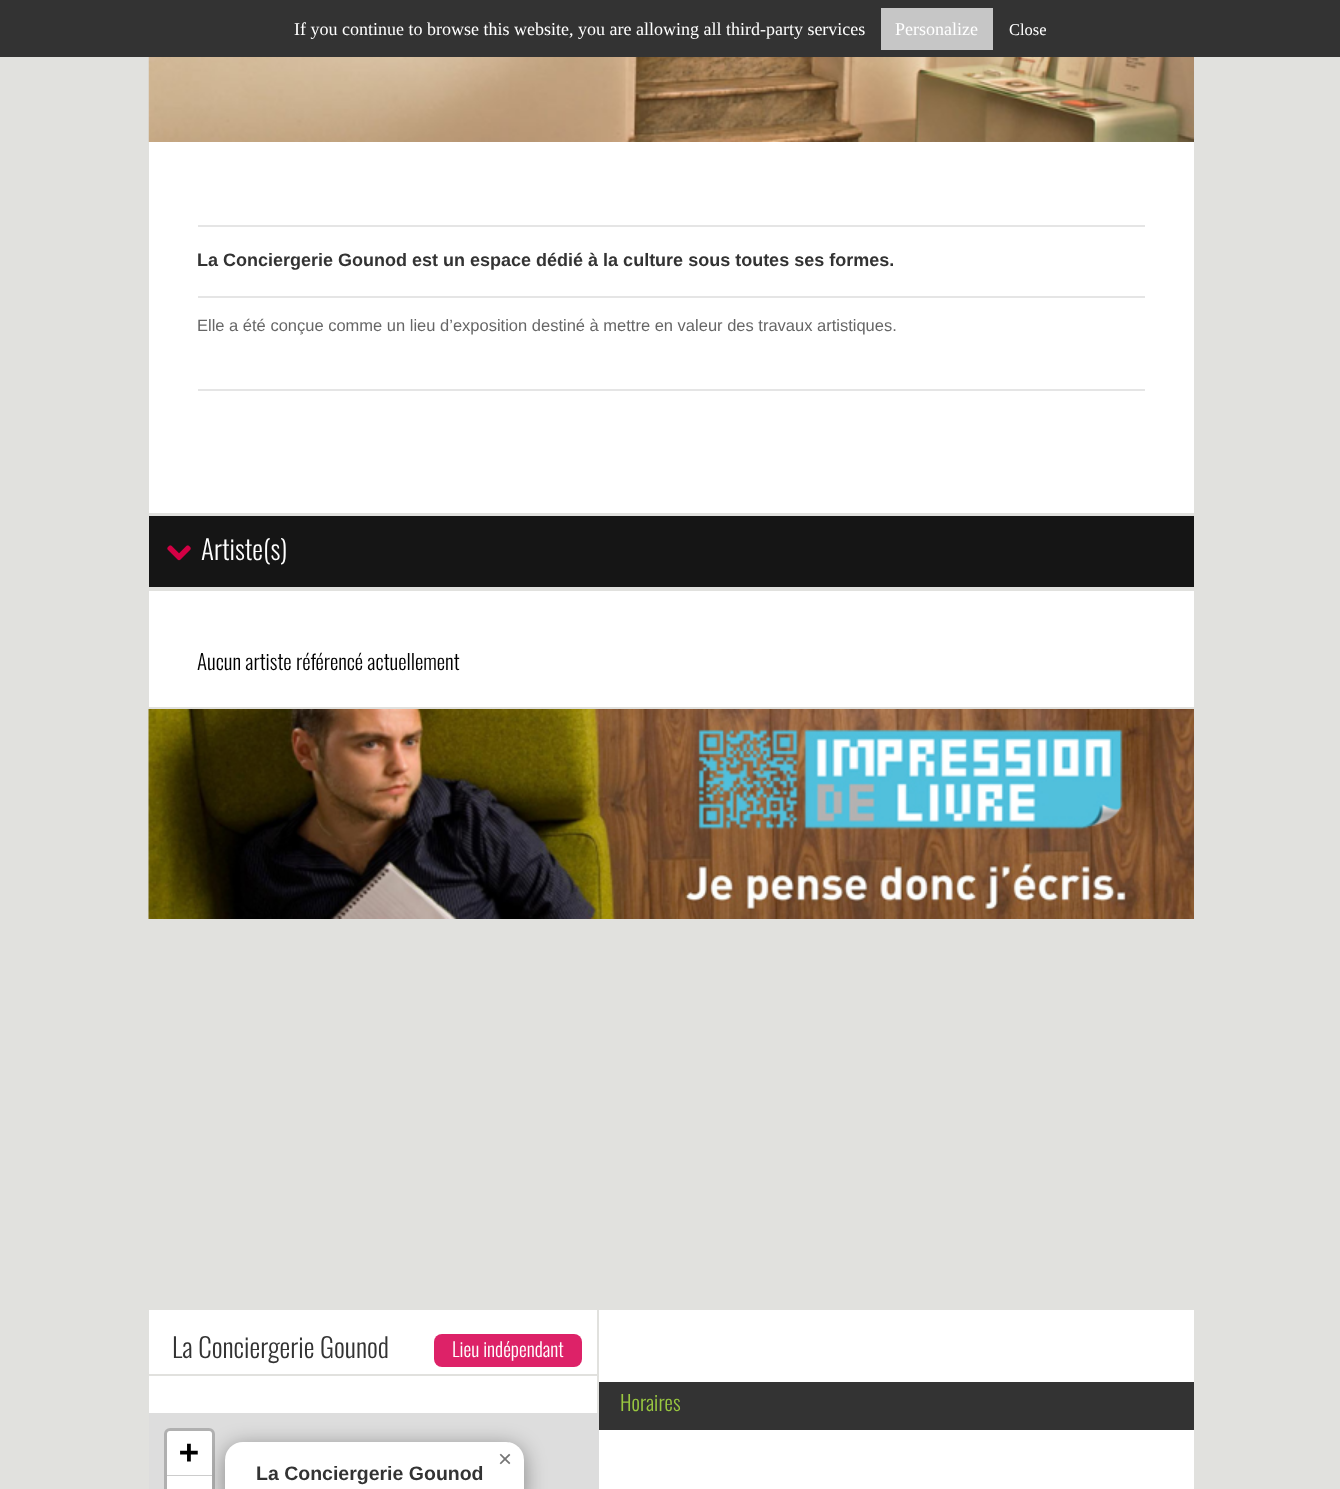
<svg xmlns="http://www.w3.org/2000/svg" width="1340" height="1489" viewBox="0 0 1340 1489">
  <style>
    .t1 { font: 18px Liberation Serif; fill: #fff; }
    .t2 { font: 16.5px Liberation Serif; fill: #fff; }
    .t3 { font: bold 18px Liberation Sans; fill: #333; }
    .t4 { font: 16.5px Liberation Sans; fill: #666; }
    .t5 { font: 300 27px Oswald; fill: #fff; }
    .t6 { font: 300 21px Oswald; fill: #000; }
    .t7 { font: 300 27px Oswald; fill: #333; }
    .t8 { font: 300 19.5px Oswald; fill: #fff; }
    .t9 { font: bold 33px DejaVu Sans Mono; fill: #000; }
    .t10 { font: 24px Liberation Sans; fill: #757575; }
    .t11 { font: bold 19.5px Liberation Sans; fill: #333; }
    .t12 { font: 300 21px Oswald; fill: #99c740; }
  </style>
  <rect width="100%" height="100%" fill="#e1e1de"/>
  <rect x="0" y="0" width="1340" height="57" fill="#333"/>
  <text x="294" y="35" class="t1">If you continue to browse this website, you are allowing all third-party services</text>
  <rect x="881" y="8" width="112" height="42" fill="#c6c6c6"/>
  <text x="895" y="35" class="t1">Personalize</text>
  <text x="1009" y="35" class="t2">Close</text>
  <rect x="149" y="142" width="1045" height="371" fill="#fff"/>
  <image x="148" y="57" width="1046" height="85" href="images/1.png"/>
  <rect x="198" y="225" width="947" height="2" fill="#e5e5e5"/>
  <rect x="198" y="296" width="947" height="2" fill="#e5e5e5"/>
  <text x="197" y="266" class="t3">La Conciergerie Gounod est un espace dédié à la culture sous toutes ses formes.</text>
  <text x="197" y="331" class="t4">Elle a été conçue comme un lieu d’exposition destiné à mettre en valeur des travaux artistiques.</text>
  <rect x="198" y="389" width="947" height="2" fill="#e5e5e5"/>
  <rect x="149" y="516" width="1045" height="71" fill="#151515"/>
  <image x="167" y="545" width="24" height="16" href="images/2.png"/>
  <text x="201" y="560" class="t5">Artiste(s)</text>
  <rect x="149" y="591" width="1045" height="116" fill="#fff"/>
  <text x="197" y="670" class="t6">Aucun artiste référencé actuellement</text>
  <image x="148" y="709" width="1046" height="210" href="images/3.png"/>
  <rect x="149" y="1310" width="1045" height="179" fill="#fff"/>
  <rect x="597" y="1310" width="2" height="103" fill="#e1e1de"/>
  <text x="172" y="1358" class="t7">La Conciergerie Gounod</text>
  <rect x="434" y="1334" width="148" height="33" rx="8" fill="#dd2268"/>
  <text x="452" y="1357" class="t8">Lieu indépendant</text>
  <rect x="149" y="1374" width="448" height="2" fill="#e1e1de"/>
  <rect x="149" y="1413" width="450" height="76" fill="#ddd"/>
  <rect x="225" y="1446" width="299" height="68" rx="18" fill="#00000066" filter="blur(10.5px)"/>
  <rect x="165.5" y="1429.5" width="48" height="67" rx="4.5" fill="none" stroke="#00000033" stroke-width="3"/>
  <path d="M170 1431H209C210.5 1431 212 1432.5 212 1434V1476H167V1434C167 1432.5 168.5 1431 170 1431Z" fill="#fff"/>
  <rect x="167" y="1475" width="45" height="1" fill="#ccc"/>
  <text x="179" y="1463" class="t9">+</text>
  <rect x="167" y="1476" width="45" height="13" fill="#fff"/>
  <rect x="225" y="1442" width="299" height="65" rx="18" fill="#fff"/>
  <text x="498" y="1467" class="t10">×</text>
  <text x="256" y="1480" class="t11">La Conciergerie Gounod</text>
  <rect x="599" y="1382" width="595" height="48" fill="#333"/>
  <text x="620" y="1411" class="t12">Horaires</text>
</svg>
